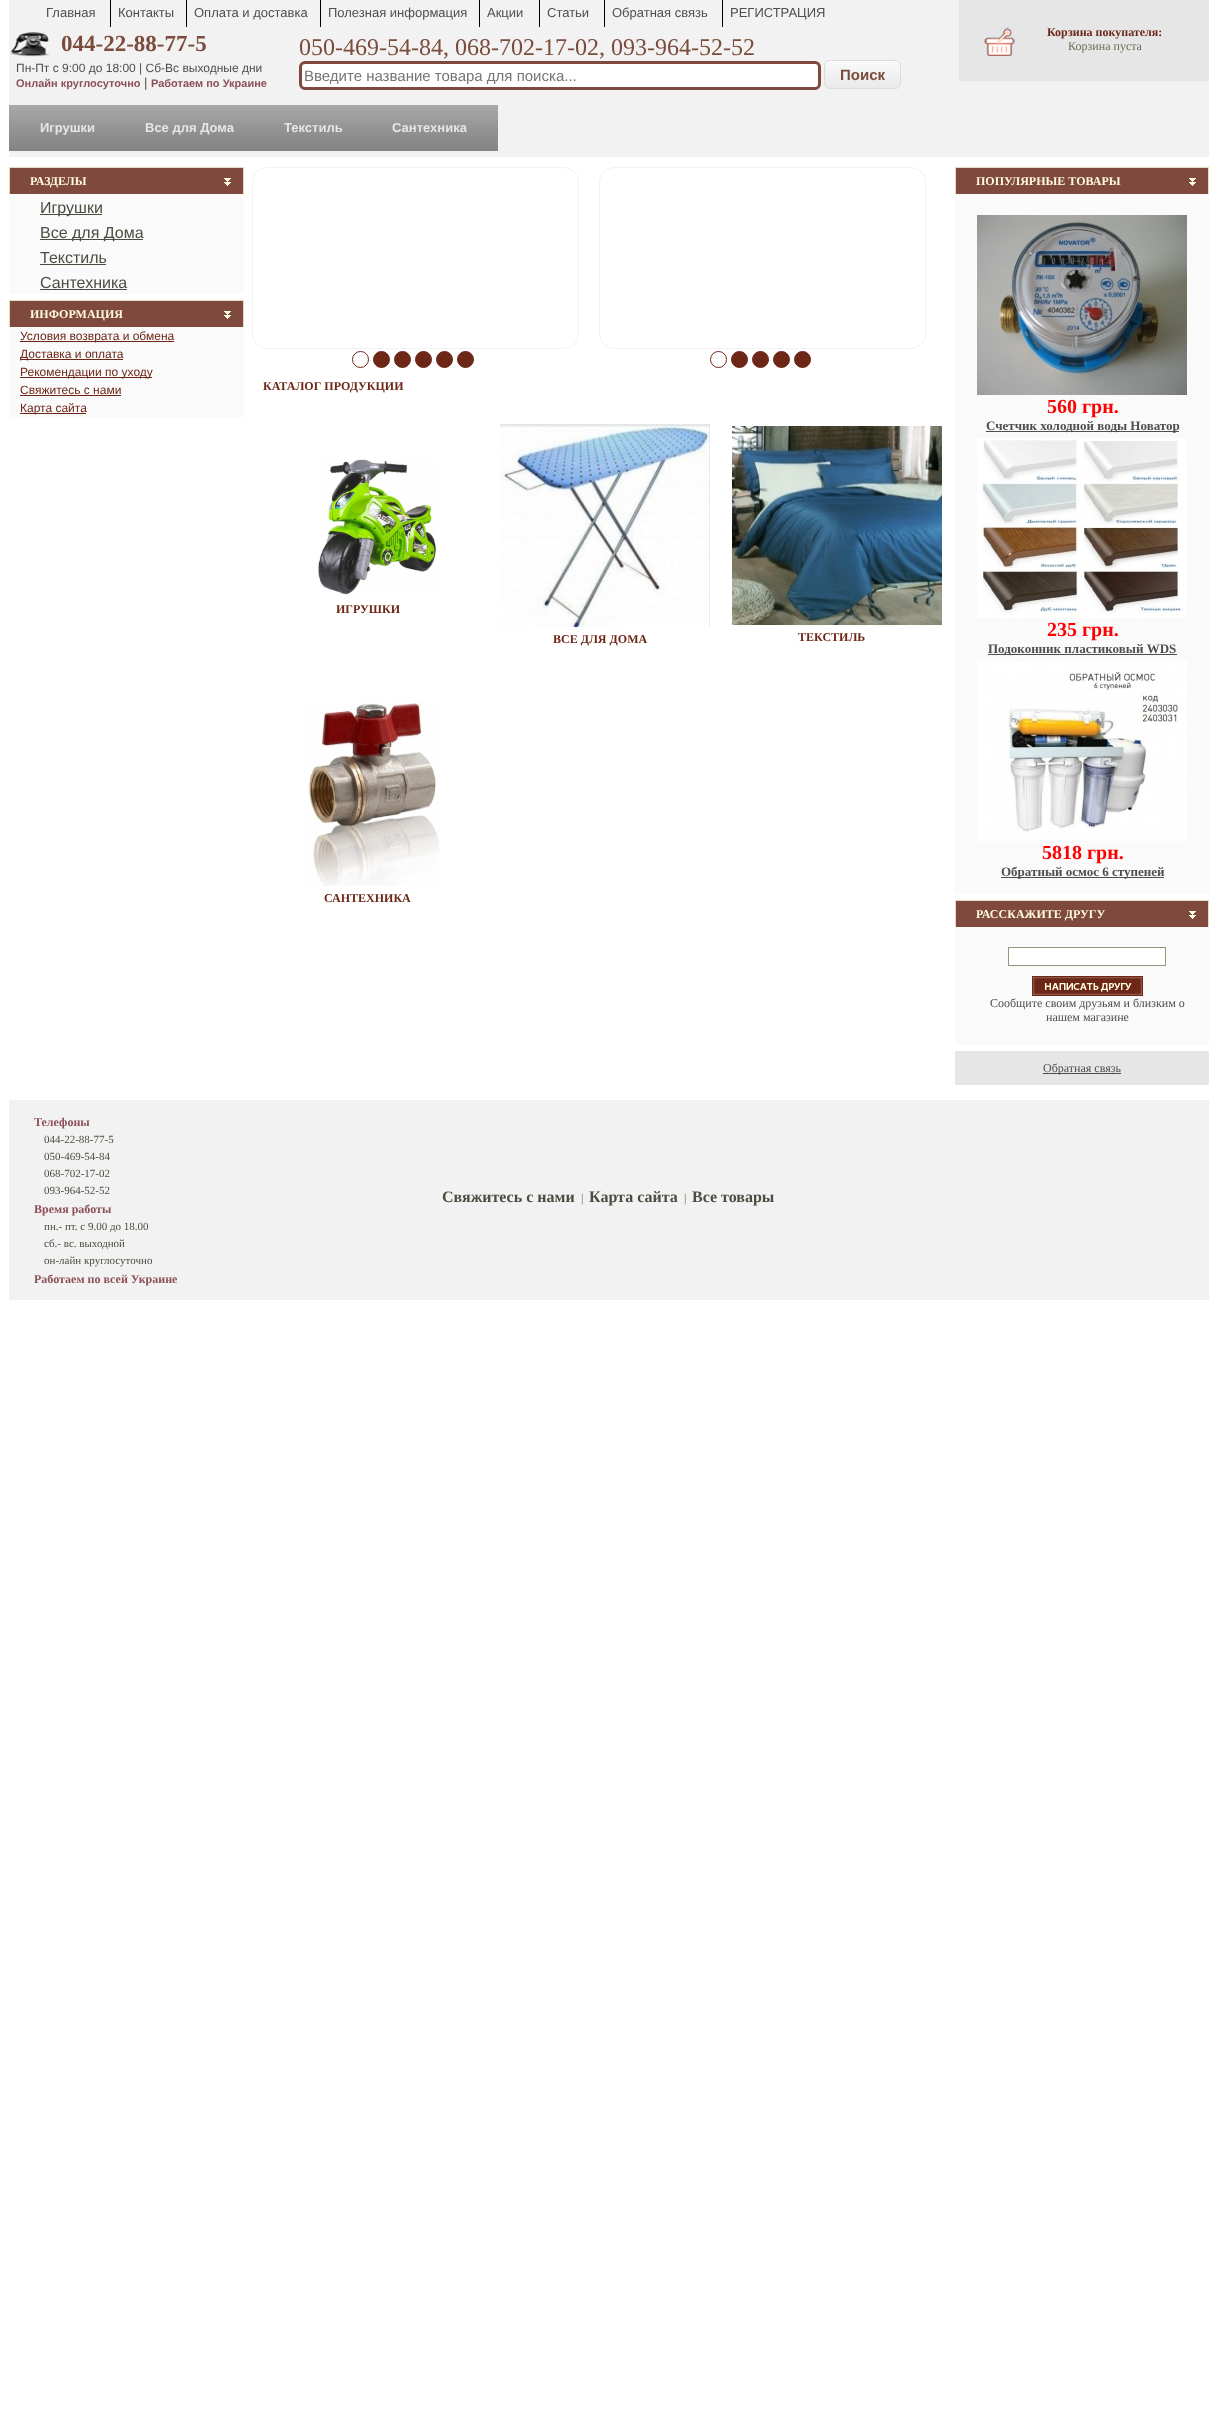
<svg xmlns="http://www.w3.org/2000/svg" width="1217" height="2425" viewBox="0 0 1217 2425">
  <style>
    .t1 { font: 13px Liberation Sans; fill: #4e4e4e; }
    .t2 { font: bold 23px Liberation Serif; fill: #7b4c3c; }
    .t3 { font: 12px Liberation Sans; fill: #4e4e4e; }
    .t4 { font: bold 11px Liberation Sans; fill: #8c4f57; }
    .t5 { font: 24px Liberation Serif; fill: #7b4c3c; }
    .t6 { font: 15px Liberation Sans; fill: #757575; }
    .t7 { font: bold 15px Liberation Sans; fill: #7b4c3c; }
    .t8 { font: bold 12px Liberation Serif; fill: #6c2717; }
    .t9 { font: 12px Liberation Serif; fill: #706c55; }
    .t10 { font: bold 13px Liberation Sans; fill: #e7e5e5; }
    .t11 { font: bold 12px Liberation Serif; fill: #fffae0; }
    .t12 { font: 16px Liberation Sans; fill: #4e4c41; }
    .t13 { font: 12px Liberation Sans; fill: #6c2717; }
    .t14 { font: bold 20px Liberation Serif; fill: #f00; }
    .t15 { font: bold 13px Liberation Serif; fill: #4e4e4e; }
    .t16 { font: 12px Liberation Serif; fill: #4e4e4e; }
    .t17 { font: bold 12px Liberation Serif; fill: #8c4f57; }
    .t18 { font: 11px Liberation Serif; fill: #4e4c41; }
    .t19 { font: bold 16px Liberation Serif; fill: #4e4c41; }
  </style>
  <defs>
    <clipPath id="clip1"><rect x="824" y="60" width="77" height="29" rx="6"/></clipPath>
    <linearGradient id="g1" gradientUnits="userSpaceOnUse" x1="863" y1="61" x2="863" y2="88"><stop offset="0.05" stop-color="#f9f9f9"/><stop offset="1" stop-color="#e9e9e9"/></linearGradient>
  </defs>
  <rect width="100%" height="100%" fill="#fff"/>
  <rect x="9" y="0" width="1200" height="157" fill="#f2f2f2"/>
  <text x="46" y="17" class="t1">Главная</text>
  <text x="118" y="17" class="t1">Контакты</text>
  <rect x="110" y="0" width="1" height="27" fill="#000"/>
  <text x="194" y="17" class="t1">Оплата и доставка</text>
  <rect x="186" y="0" width="1" height="27" fill="#000"/>
  <text x="328" y="17" class="t1">Полезная информация</text>
  <rect x="320" y="0" width="1" height="27" fill="#000"/>
  <text x="487" y="17" class="t1">Акции</text>
  <rect x="479" y="0" width="1" height="27" fill="#000"/>
  <text x="547" y="17" class="t1">Статьи</text>
  <rect x="539" y="0" width="1" height="27" fill="#000"/>
  <text x="612" y="17" class="t1">Обратная связь</text>
  <rect x="604" y="0" width="1" height="27" fill="#000"/>
  <text x="730" y="17" class="t1">РЕГИСТРАЦИЯ</text>
  <rect x="722" y="0" width="1" height="27" fill="#000"/>
  <image x="10" y="32" width="40" height="25" href="images/1.png"/>
  <text x="61" y="51" class="t2">044-22-88-77-5</text>
  <text x="16" y="72" class="t3">Пн-Пт с 9:00 до 18:00 | Сб-Вс выходные дни</text>
  <text x="16" y="87" class="t4">Онлайн круглосуточно</text>
  <text x="144" y="87" class="t1">|</text>
  <text x="151" y="87" class="t4">Работаем по Украине</text>
  <text x="299" y="55" class="t5">050-469-54-84, 068-702-17-02, 093-964-52-52</text>
  <rect x="300.5" y="62.5" width="519" height="26" rx="4.5" fill="#fff" stroke="#7f493d" stroke-width="3"/>
  <text x="304" y="81" class="t6">Введите название товара для поиска...</text>
  <g clip-path="url(#clip1)">
    <rect x="824" y="61" width="77" height="27" fill="url(#g1)"/>
  </g>
  <path d="M830 62H895C898 62 900 64 900 67C900 59 890 61 884 61H841C835 61 825 59 825 67C825 64 827 62 830 62Z" fill="#fff"/>
  <rect x="824.5" y="60.5" width="76" height="28" rx="5.5" fill="none" stroke="#dcdcdc"/>
  <text x="840" y="80" class="t7">Поиск</text>
  <rect x="959" y="0" width="250" height="81" fill="#e6e6e6"/>
  <image x="984" y="27" width="31" height="29" href="images/2.png"/>
  <text x="1047" y="36" class="t8">Корзина покупателя:</text>
  <text x="1068" y="50" class="t9">Корзина пуста</text>
  <rect x="9" y="105" width="489" height="46" fill="#7d7d7d"/>
  <image x="9" y="105" width="489" height="46" href="images/3.png"/>
  <text x="40" y="132" class="t10">Игрушки</text>
  <text x="145" y="132" class="t10">Все для Дома</text>
  <text x="284" y="132" class="t10">Текстиль</text>
  <text x="392" y="132" class="t10">Сантехника</text>
  <rect x="10" y="168" width="214" height="26" fill="#7f493d"/>
  <image x="224" y="168" width="20" height="26" href="images/4.png"/>
  <rect x="9" y="167" width="235" height="1" fill="#e4dbc1"/>
  <rect x="9" y="167" width="1" height="27" fill="#e4dbc1"/>
  <text x="30" y="185" class="t11">РАЗДЕЛЫ</text>
  <rect x="9" y="194" width="235" height="100" fill="#fafafa"/>
  <rect x="40" y="214" width="62" height="1" fill="#4e4c41"/>
  <text x="40" y="213" class="t12">Игрушки</text>
  <rect x="40" y="239" width="103" height="1" fill="#4e4c41"/>
  <text x="40" y="238" class="t12">Все для Дома</text>
  <text x="40" y="263" class="t12">Текстиль</text>
  <rect x="40" y="264" width="66" height="1" fill="#4e4c41"/>
  <text x="40" y="288" class="t12">Сантехника</text>
  <rect x="40" y="289" width="87" height="1" fill="#4e4c41"/>
  <rect x="10" y="301" width="214" height="26" fill="#7f493d"/>
  <image x="224" y="301" width="20" height="26" href="images/4.png"/>
  <rect x="9" y="300" width="235" height="1" fill="#e4dbc1"/>
  <rect x="9" y="300" width="1" height="27" fill="#e4dbc1"/>
  <text x="30" y="318" class="t11">ИНФОРМАЦИЯ</text>
  <rect x="9" y="327" width="235" height="90" fill="#fafafa"/>
  <rect x="20" y="341" width="154" height="1" fill="#6c2717"/>
  <text x="20" y="340" class="t13">Условия возврата и обмена</text>
  <rect x="20" y="359" width="103" height="1" fill="#6c2717"/>
  <text x="20" y="358" class="t13">Доставка и оплата</text>
  <rect x="20" y="377" width="132" height="1" fill="#6c2717"/>
  <text x="20" y="376" class="t13">Рекомендации по уходу</text>
  <text x="20" y="394" class="t13">Свяжитесь с нами</text>
  <rect x="20" y="395" width="101" height="1" fill="#6c2717"/>
  <rect x="20" y="413" width="66" height="1" fill="#6c2717"/>
  <text x="20" y="412" class="t13">Карта сайта</text>
  <rect x="252.5" y="167.5" width="326" height="181" rx="14.5" fill="none" stroke="#f2f2f2"/>
  <circle cx="360.5" cy="359.5" r="8" fill="none" stroke="#6c2717"/>
  <circle cx="381.5" cy="359.5" r="8" fill="#6c2717" stroke="#6c2717"/>
  <circle cx="402.5" cy="359.5" r="8" fill="#6c2717" stroke="#6c2717"/>
  <circle cx="423.5" cy="359.5" r="8" fill="#6c2717" stroke="#6c2717"/>
  <circle cx="444.5" cy="359.5" r="8" fill="#6c2717" stroke="#6c2717"/>
  <circle cx="465.5" cy="359.5" r="8" fill="#6c2717" stroke="#6c2717"/>
  <rect x="599.5" y="167.5" width="326" height="181" rx="14.5" fill="none" stroke="#f2f2f2"/>
  <circle cx="718.5" cy="359.5" r="8" fill="none" stroke="#6c2717"/>
  <circle cx="739.5" cy="359.5" r="8" fill="#6c2717" stroke="#6c2717"/>
  <circle cx="760.5" cy="359.5" r="8" fill="#6c2717" stroke="#6c2717"/>
  <circle cx="781.5" cy="359.5" r="8" fill="#6c2717" stroke="#6c2717"/>
  <circle cx="802.5" cy="359.5" r="8" fill="#6c2717" stroke="#6c2717"/>
  <text x="263" y="390" class="t8">КАТАЛОГ ПРОДУКЦИИ</text>
  <image x="318" y="459" width="119" height="136" href="images/5.png"/>
  <text x="336" y="613" class="t8">ИГРУШКИ</text>
  <image x="500" y="424" width="210" height="203" href="images/6.png"/>
  <text x="553" y="643" class="t8">ВСЕ ДЛЯ ДОМА</text>
  <image x="732" y="426" width="210" height="199" href="images/7.png"/>
  <text x="798" y="641" class="t8">ТЕКСТИЛЬ</text>
  <image x="307" y="702" width="133" height="184" href="images/8.png"/>
  <text x="324" y="902" class="t8">САНТЕХНИКА</text>
  <rect x="956" y="168" width="233" height="26" fill="#7f493d"/>
  <image x="1189" y="168" width="20" height="26" href="images/4.png"/>
  <rect x="955" y="167" width="254" height="1" fill="#e4dbc1"/>
  <rect x="955" y="167" width="1" height="27" fill="#e4dbc1"/>
  <text x="976" y="185" class="t11">ПОПУЛЯРНЫЕ ТОВАРЫ</text>
  <rect x="955" y="194" width="254" height="700" fill="#fafafa"/>
  <image x="977" y="215" width="210" height="180" href="images/9.png"/>
  <text x="1047" y="413" class="t14">560 грн.</text>
  <rect x="986" y="431" width="193" height="1" fill="#4e4e4e"/>
  <text x="986" y="430" class="t15">Счетчик холодной воды Новатор</text>
  <image x="977" y="438" width="210" height="180" href="images/10.png"/>
  <text x="1047" y="636" class="t14">235 грн.</text>
  <rect x="988" y="654" width="189" height="1" fill="#4e4e4e"/>
  <text x="988" y="653" class="t15">Подоконник пластиковый WDS</text>
  <image x="977" y="661" width="210" height="180" href="images/11.png"/>
  <text x="1042" y="859" class="t14">5818 грн.</text>
  <rect x="1001" y="877" width="163" height="1" fill="#4e4e4e"/>
  <text x="1001" y="876" class="t15">Обратный осмос 6 ступеней</text>
  <rect x="956" y="901" width="233" height="26" fill="#7f493d"/>
  <image x="1189" y="901" width="20" height="26" href="images/4.png"/>
  <rect x="955" y="900" width="254" height="1" fill="#e4dbc1"/>
  <rect x="955" y="900" width="1" height="27" fill="#e4dbc1"/>
  <text x="976" y="918" class="t11">РАССКАЖИТЕ ДРУГУ</text>
  <rect x="955" y="927" width="254" height="118" fill="#fafafa"/>
  <rect x="1008.5" y="947.5" width="157" height="18" fill="#fff" stroke="#999477"/>
  <image x="1032" y="976" width="111" height="20" href="images/12.png"/>
  <text x="990" y="1007" class="t16">Сообщите своим друзьям и близким о</text>
  <text x="1046" y="1021" class="t16">нашем магазине</text>
  <rect x="955" y="1051" width="254" height="34" fill="#e6e6e6"/>
  <rect x="1043" y="1073" width="78" height="1" fill="#4e4e4e"/>
  <text x="1043" y="1072" class="t16">Обратная связь</text>
  <rect x="9" y="1100" width="1200" height="200" fill="#f2f2f2"/>
  <text x="34" y="1126" class="t17">Телефоны</text>
  <text x="44" y="1143" class="t18">044-22-88-77-5</text>
  <text x="44" y="1160" class="t18">050-469-54-84</text>
  <text x="44" y="1177" class="t18">068-702-17-02</text>
  <text x="44" y="1194" class="t18">093-964-52-52</text>
  <text x="34" y="1213" class="t17">Время работы</text>
  <text x="44" y="1230" class="t18">пн.- пт. с 9.00 до 18.00</text>
  <text x="44" y="1247" class="t18">сб.- вс. выходной</text>
  <text x="44" y="1264" class="t18">он-лайн круглосуточно</text>
  <text x="34" y="1283" class="t17">Работаем по всей Украине</text>
  <text x="442" y="1202" class="t19">Свяжитесь с нами</text>
  <text x="581" y="1202" class="t9">|</text>
  <text x="589" y="1202" class="t19">Карта сайта</text>
  <text x="684" y="1202" class="t9">|</text>
  <text x="692" y="1202" class="t19">Все товары</text>
</svg>
